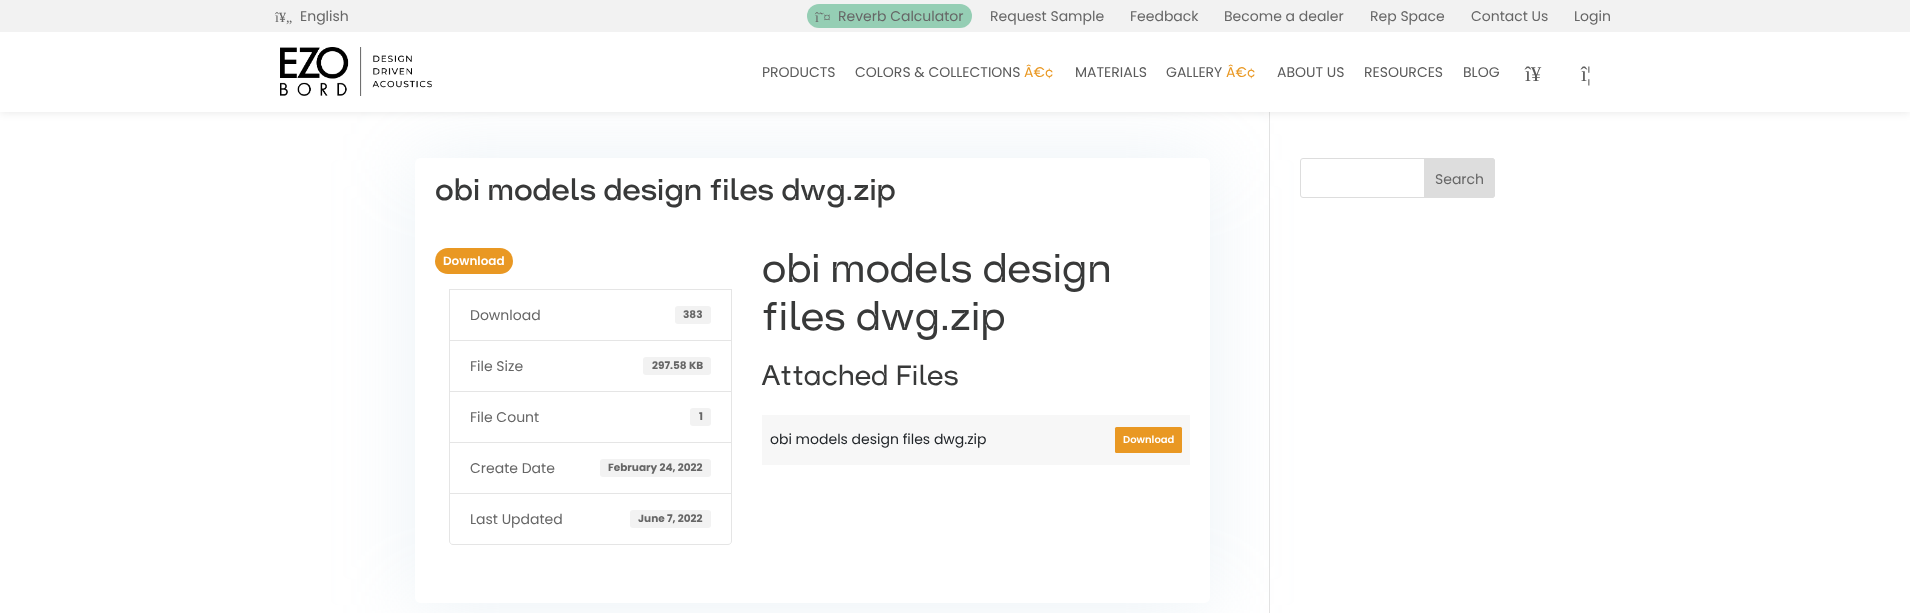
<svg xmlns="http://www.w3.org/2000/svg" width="1910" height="613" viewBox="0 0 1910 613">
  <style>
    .t1 { font: 14px Liberation Serif; fill: #666; }
    .t2 { font: 14px Poppins; fill: #666; }
    .t3 { font: 14px Poppins; fill: #5a5a5a; }
    .t4 { font: 14px Poppins; fill: #e99823; }
    .t5 { font: 21px Liberation Serif; fill: #5a5a5a; }
    .t6 { font: 600 30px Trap; fill: #383939; }
    .t7 { font: 600 12px Poppins; fill: #fff; }
    .t8 { font: bold 10.5px Poppins; fill: #666; }
    .t9 { font: 500 40px Trap; fill: #383939; }
    .t10 { font: 500 28px Trap; fill: #383939; }
    .t11 { font: 14px Poppins; fill: #212529; }
    .t12 { font: 600 10px Poppins; fill: #fff; }
  </style>
  <defs>
    <clipPath id="clip1"><path d="M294 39H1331V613H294ZM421 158H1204C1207.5 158 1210 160.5 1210 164V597C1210 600.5 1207.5 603 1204 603H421C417.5 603 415 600.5 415 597V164C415 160.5 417.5 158 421 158Z" clip-rule="evenodd"/></clipPath>
  </defs>
  <rect width="100%" height="100%" fill="#fff"/>
  <g clip-path="url(#clip1)">
    <rect x="415" y="160" width="795" height="445" rx="6" fill="#a0bed438" filter="blur(40px)"/>
  </g>
  <rect x="1269" y="112" width="1" height="501" fill="#e2e2e2"/>
  <rect x="0" y="32" width="1910" height="80" fill="#0000001a" filter="blur(5px)"/>
  <rect x="0" y="0" width="1910" height="32" fill="#f2f2f2"/>
  <text x="275" y="22" class="t1">î¥„</text>
  <text x="300" y="21" class="t2">English</text>
  <rect x="807" y="4" width="165" height="24" rx="12" fill="#95ceb4"/>
  <text x="815" y="22" class="t1">î˜¤</text>
  <text x="838" y="21" class="t2">Reverb Calculator</text>
  <text x="990" y="21" class="t2">Request Sample</text>
  <text x="1130" y="21" class="t2">Feedback</text>
  <text x="1224" y="21" class="t2">Become a dealer</text>
  <text x="1370" y="21" class="t2">Rep Space</text>
  <text x="1471" y="21" class="t2">Contact Us</text>
  <text x="1574" y="21" class="t2">Login</text>
  <rect x="0" y="32" width="1910" height="80" fill="#fff"/>
  <image x="280" y="47" width="152" height="49" href="images/1.png"/>
  <text x="762" y="77" class="t3">PRODUCTS</text>
  <text x="855" y="77" class="t3">COLORS &amp; COLLECTIONS</text>
  <text x="1024" y="77" class="t4">Â€¢</text>
  <text x="1075" y="77" class="t3">MATERIALS</text>
  <text x="1166" y="77" class="t3">GALLERY</text>
  <text x="1226" y="77" class="t4">Â€¢</text>
  <text x="1277" y="77" class="t3">ABOUT US</text>
  <text x="1364" y="77" class="t3">RESOURCES</text>
  <text x="1463" y="77" class="t3">BLOG</text>
  <text x="1525" y="81" class="t5">î¥</text>
  <text x="1581" y="81" class="t5">î¦</text>
  <text x="435" y="200" class="t6">obi models design files dwg.zip</text>
  <rect x="435" y="248" width="78" height="26" rx="13" fill="#e99823"/>
  <text x="443" y="265" class="t7">Download</text>
  <rect x="449.5" y="289.5" width="282" height="51" fill="none" stroke="#e5e5e5"/>
  <text x="470" y="320" class="t2">Download</text>
  <rect x="675" y="306" width="36" height="18" rx="3" fill="#f2f2f2"/>
  <text x="683" y="318" class="t8">383</text>
  <rect x="449.5" y="340.5" width="282" height="51" fill="none" stroke="#e5e5e5"/>
  <text x="470" y="371" class="t2">File Size</text>
  <rect x="643" y="357" width="68" height="18" rx="3" fill="#f2f2f2"/>
  <text x="652" y="369" class="t8">297.58 KB</text>
  <rect x="449.5" y="391.5" width="282" height="51" fill="none" stroke="#e5e5e5"/>
  <text x="470" y="422" class="t2">File Count</text>
  <rect x="690" y="408" width="21" height="18" rx="3" fill="#f2f2f2"/>
  <text x="699" y="420" class="t8">1</text>
  <rect x="449.5" y="442.5" width="282" height="51" fill="none" stroke="#e5e5e5"/>
  <text x="470" y="473" class="t2">Create Date</text>
  <rect x="600" y="459" width="111" height="18" rx="3" fill="#f2f2f2"/>
  <text x="608" y="471" class="t8">February 24, 2022</text>
  <path d="M449.5 493.5H731.5V541C731.5 543 730 544.5 728 544.5H453C451 544.5 449.5 543 449.5 541Z" fill="#fff" stroke="#e5e5e5"/>
  <text x="470" y="524" class="t2">Last Updated</text>
  <rect x="630" y="510" width="81" height="18" rx="3" fill="#f2f2f2"/>
  <text x="638" y="522" class="t8">June 7, 2022</text>
  <text x="762" y="282" class="t9">obi models design</text>
  <text x="762" y="330" class="t9">files dwg.zip</text>
  <text x="762" y="385" class="t10">Attached Files</text>
  <rect x="762" y="415" width="428" height="50" fill="#f7f7f7"/>
  <text x="770" y="444" class="t11">obi models design files dwg.zip</text>
  <rect x="1115" y="427" width="67" height="26" rx="1.5" fill="#e99823"/>
  <text x="1123" y="443" class="t12">Download</text>
  <rect x="1300.5" y="158.5" width="194" height="39" rx="2.5" fill="none" stroke="#ddd"/>
  <path d="M1424.5 158.5H1492C1493.5 158.5 1494.5 159.5 1494.5 161V195C1494.5 196.5 1493.5 197.5 1492 197.5H1424.5Z" fill="#ddd" stroke="#ddd"/>
  <text x="1435" y="184" class="t2">Search</text>
</svg>
